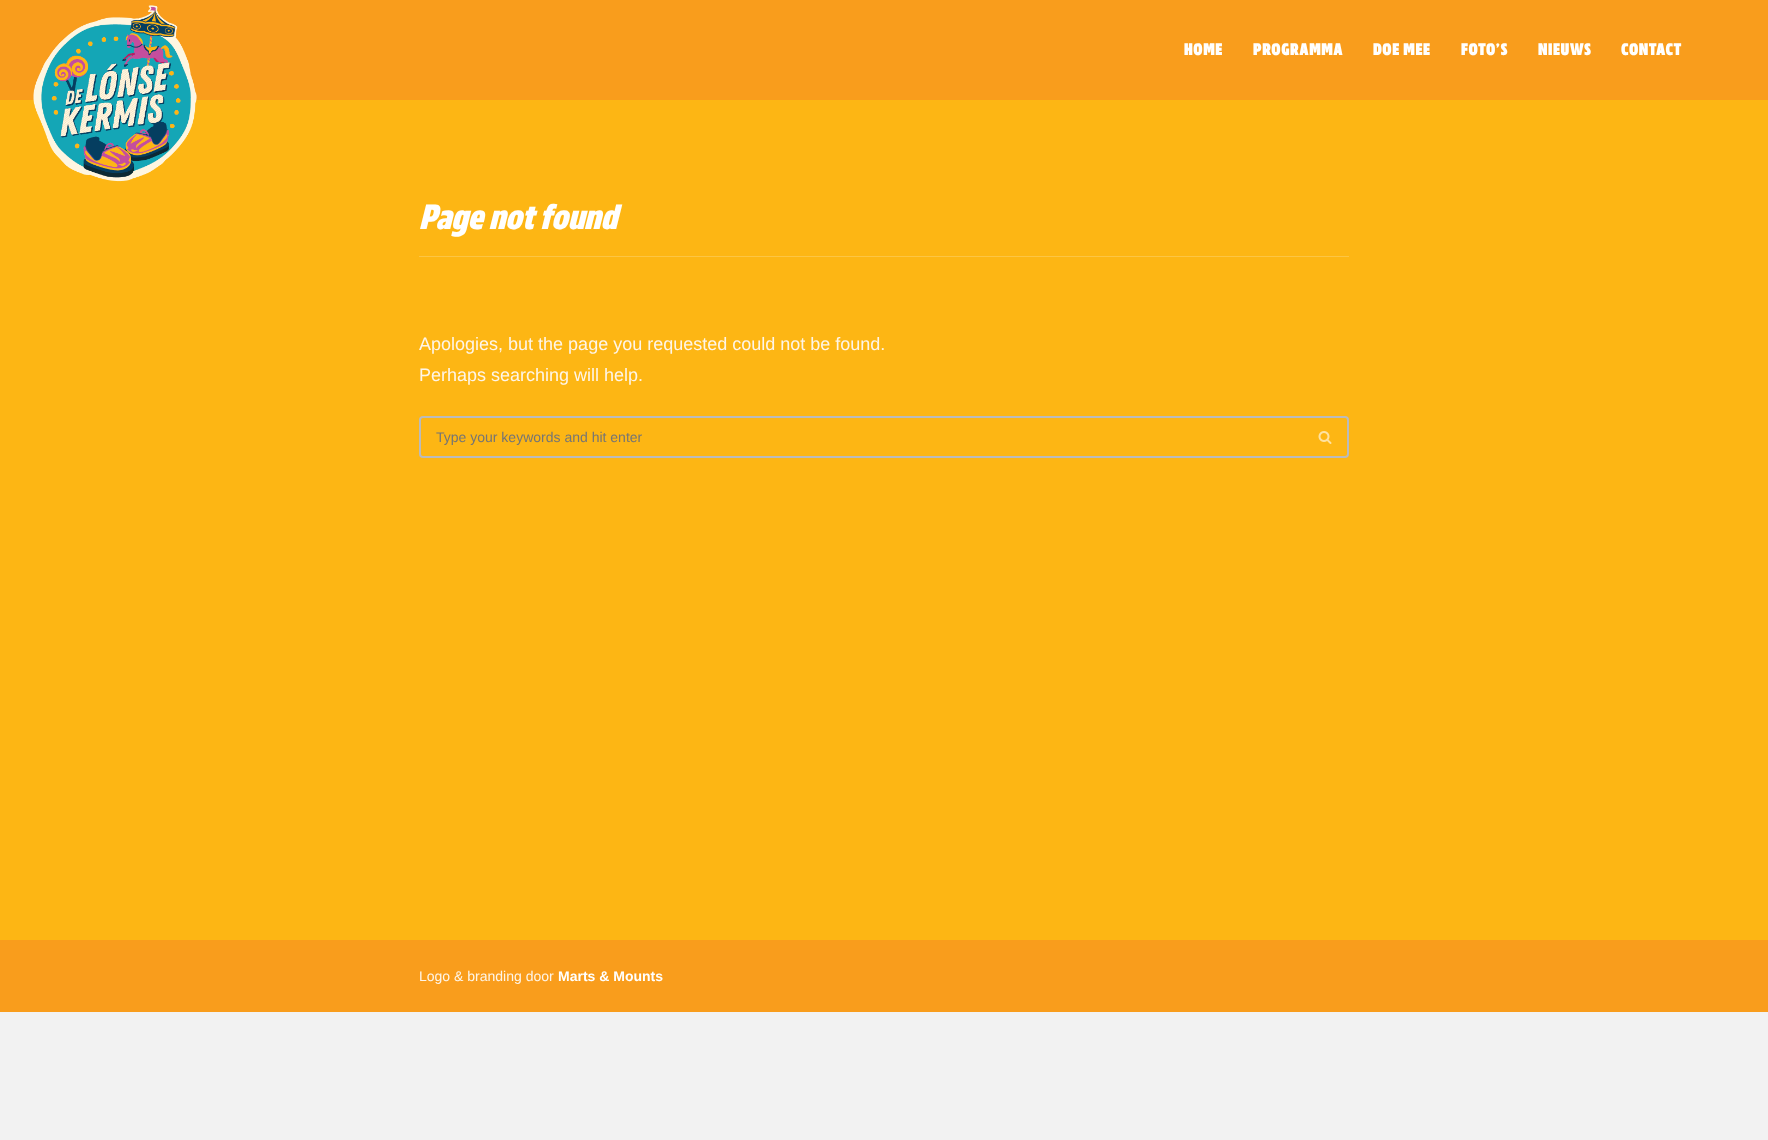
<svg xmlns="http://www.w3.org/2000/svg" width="1768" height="1140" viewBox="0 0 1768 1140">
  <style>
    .t1 { font: bold 16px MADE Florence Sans; letter-spacing: 1px; fill: #fff; }
    .t2 { font: italic 35px MADE Florence Sans; fill: #fff; }
    .t3 { font: 18px Liberation Sans; fill: #fef5e8; }
    .t4 { font: 14px Liberation Sans; fill: #757575; }
    .t5 { font: 14px Liberation Sans; fill: #fef5e8; }
    .t6 { font: bold 14px Liberation Sans; fill: #fff; }
  </style>
  <rect width="100%" height="100%" fill="#f2f2f2"/>
  <rect x="0" y="100" width="1768" height="840" fill="#fdb614"/>
  <rect x="0" y="0" width="1768" height="100" fill="#f99d1c"/>
  <image x="33" y="5" width="164" height="177" href="images/1.png"/>
  <text x="1184" y="55" class="t1">HOME</text>
  <text x="1253" y="55" class="t1">PROGRAMMA</text>
  <text x="1373" y="55" class="t1">DOE MEE</text>
  <text x="1461" y="55" class="t1">FOTO’S</text>
  <text x="1538" y="55" class="t1">NIEUWS</text>
  <text x="1621" y="55" class="t1">CONTACT</text>
  <rect x="419" y="256" width="930" height="1" fill="#fdc543"/>
  <text x="419" y="229" class="t2">Page not found</text>
  <text x="419" y="350" class="t3">Apologies, but the page you requested could not be found.</text>
  <text x="419" y="381" class="t3">Perhaps searching will help.</text>
  <rect x="420" y="417" width="928" height="40" rx="3" fill="none" stroke="#bbb" stroke-width="2"/>
  <text x="436" y="442" class="t4">Type your keywords and hit enter</text>
  <image x="1318" y="431" width="14" height="13" href="images/2.png"/>
  <rect x="0" y="940" width="1768" height="72" fill="#f99d1c"/>
  <text x="419" y="981" class="t5">Logo &amp; branding door</text>
  <text x="558" y="981" class="t6">Marts &amp; Mounts</text>
</svg>
